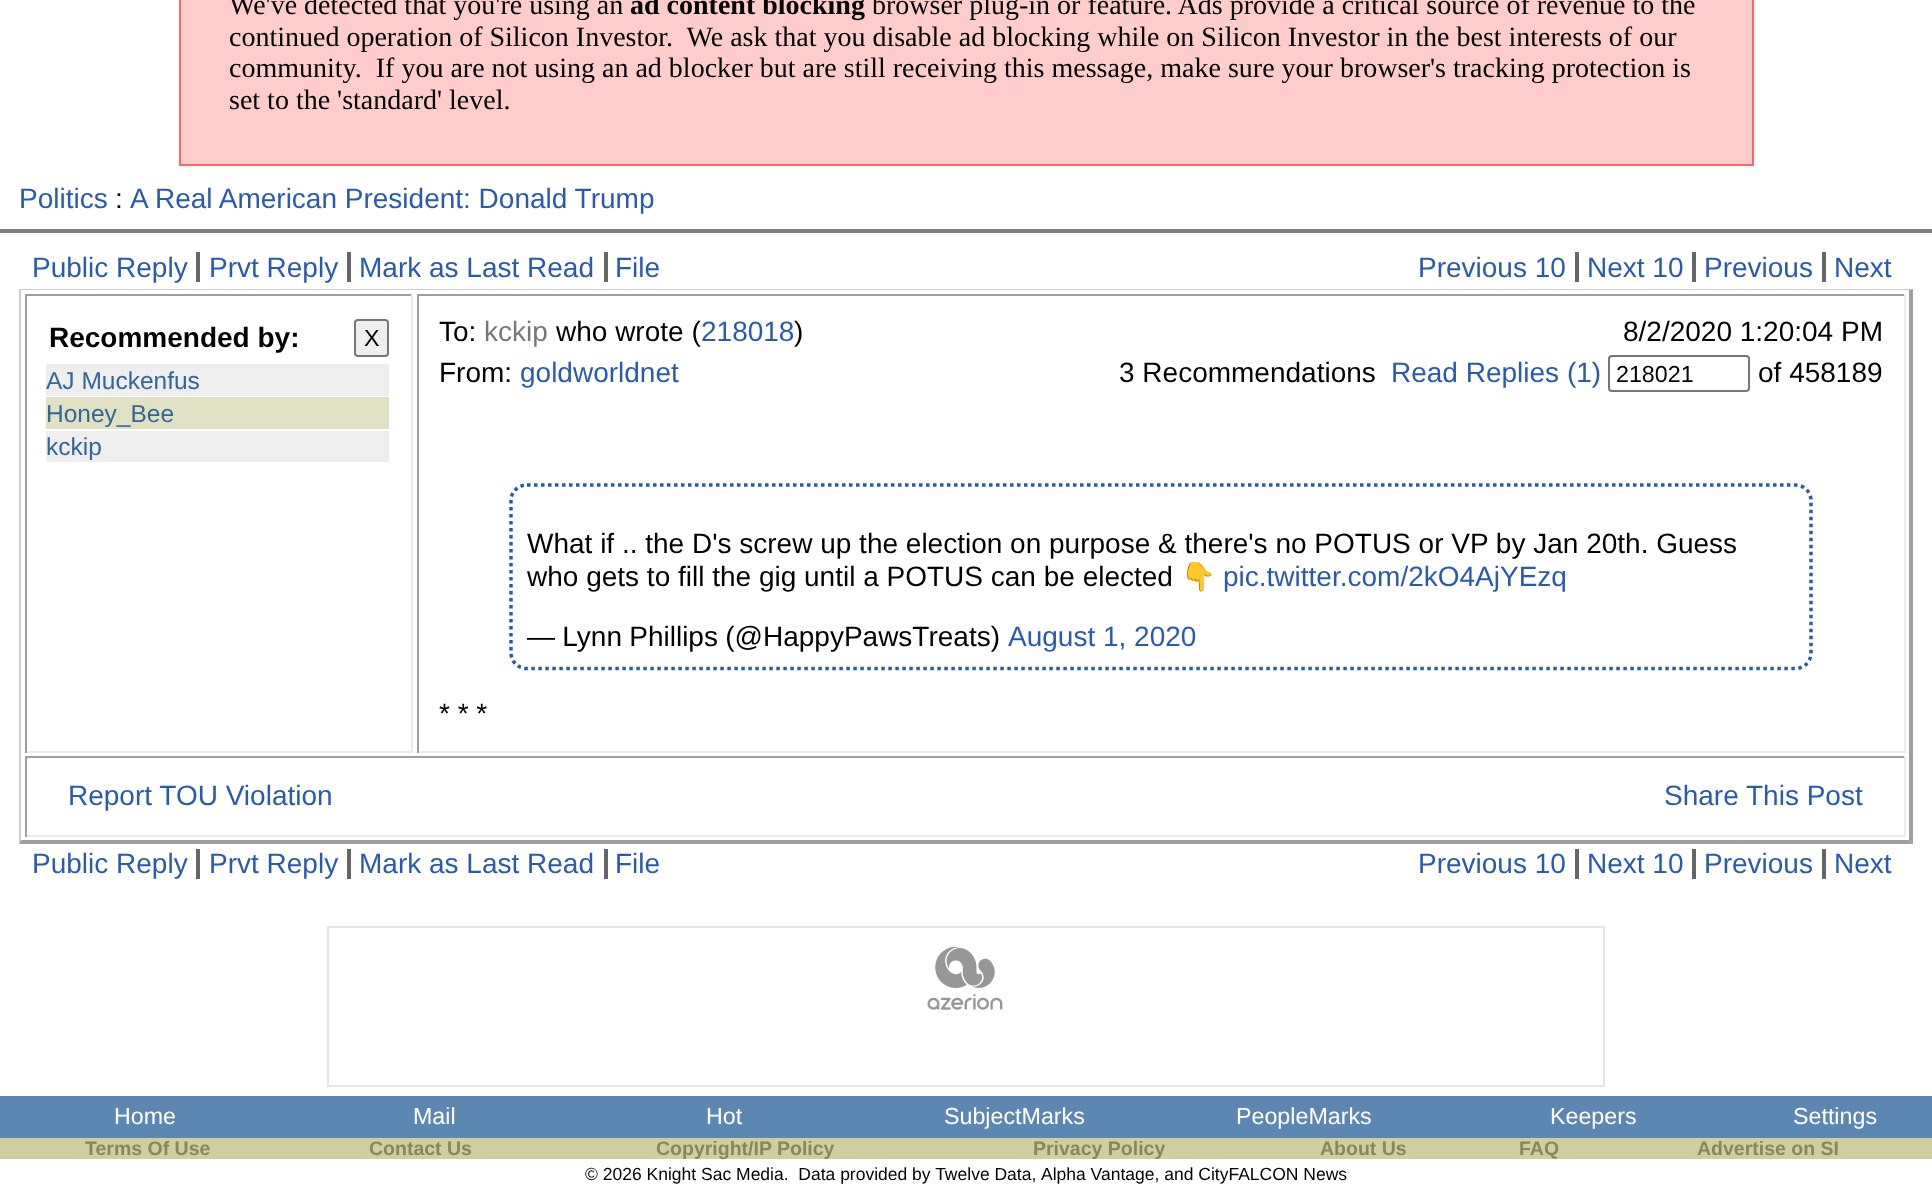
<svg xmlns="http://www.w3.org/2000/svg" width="1932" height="1188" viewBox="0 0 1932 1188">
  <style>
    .t1 { font: 28px Liberation Serif; fill: #000; }
    .t2 { font: bold 28px Liberation Serif; fill: #000; }
    .t3 { font: 28px Liberation Sans; fill: #2b59b2; }
    .t4 { font: 28px Liberation Sans; fill: #000; }
    .t5 { font: bold 28px Liberation Sans; fill: #000; }
    .t6 { font: 23.25px Liberation Sans; fill: #000; }
    .t7 { font: 24.5px Liberation Sans; fill: #369; }
    .t8 { font: 28px Liberation Sans; fill: #777; }
    .t9 { font: 28px Noto Color Emoji; fill: #000; }
    .t10 { font: 23.25px Liberation Sans; fill: #fff; }
    .t11 { font: bold 19.5px Liberation Sans; fill: #885; }
    .t12 { font: 17.5px Liberation Sans; fill: #000; }
  </style>
  <rect width="100%" height="100%" fill="#fff"/>
  <rect x="180" y="-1" width="1573" height="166" fill="#fcc" stroke="#f66" stroke-width="2"/>
  <text x="229" y="14" class="t1">We've detected that you're using an</text>
  <text x="630" y="14" class="t2">ad content blocking</text>
  <text x="872" y="14" class="t1">browser plug-in or feature. Ads provide a critical source of revenue to the</text>
  <text x="229" y="46" class="t1" xml:space="preserve">continued operation of Silicon Investor.  We ask that you disable ad blocking while on Silicon Investor in the best interests of our</text>
  <text x="229" y="77" class="t1" xml:space="preserve">community.  If you are not using an ad blocker but are still receiving this message, make sure your browser's tracking protection is</text>
  <text x="229" y="109" class="t1">set to the 'standard' level.</text>
  <text x="19" y="208" class="t3">Politics</text>
  <text x="115" y="208" class="t4">:</text>
  <text x="130" y="208" class="t3">A Real American President: Donald Trump</text>
  <rect x="0" y="229" width="1932" height="4" fill="#808080"/>
  <text x="32" y="277" class="t3">Public Reply</text>
  <text x="209" y="277" class="t3">Prvt Reply</text>
  <rect x="196" y="252" width="4" height="30" fill="#666"/>
  <text x="359" y="277" class="t3">Mark as Last Read</text>
  <rect x="347" y="252" width="4" height="30" fill="#666"/>
  <text x="615" y="277" class="t3">File</text>
  <rect x="604" y="252" width="4" height="30" fill="#666"/>
  <text x="1418" y="277" class="t3">Previous 10</text>
  <rect x="1575" y="252" width="4" height="30" fill="#666"/>
  <text x="1587" y="277" class="t3">Next 10</text>
  <rect x="1692" y="252" width="4" height="30" fill="#666"/>
  <text x="1704" y="277" class="t3">Previous</text>
  <rect x="1822" y="252" width="4" height="30" fill="#666"/>
  <text x="1834" y="277" class="t3">Next</text>
  <path d="M19 289H1913L1909 290H21Z" fill="#cbcbcb"/>
  <path d="M1913 289V844L1909 840V290Z" fill="#9f9f9f"/>
  <path d="M1913 844H19L21 840H1909Z" fill="#9f9f9f"/>
  <path d="M19 844V289L21 290V840Z" fill="#cbcbcb"/>
  <rect x="25" y="294" width="388" height="2" fill="#9f9f9f"/>
  <rect x="411" y="294" width="2" height="459" fill="#ebebeb"/>
  <rect x="25" y="751" width="388" height="2" fill="#ebebeb"/>
  <rect x="25" y="294" width="2" height="459" fill="#9f9f9f"/>
  <text x="49" y="347" class="t5">Recommended by:</text>
  <rect x="355" y="320" width="33" height="36" rx="3" fill="#efefef" stroke="#767676" stroke-width="2"/>
  <text x="364" y="346" class="t6">X</text>
  <rect x="46" y="364" width="343" height="32" fill="#eee"/>
  <text x="46" y="389" class="t7">AJ Muckenfus</text>
  <rect x="46" y="397" width="343" height="32" fill="#e0e0c2"/>
  <text x="46" y="422" class="t7">Honey_Bee</text>
  <rect x="46" y="431" width="343" height="31" fill="#eee"/>
  <text x="46" y="455" class="t7">kckip</text>
  <rect x="417" y="294" width="1489" height="2" fill="#9f9f9f"/>
  <rect x="1904" y="294" width="2" height="459" fill="#ebebeb"/>
  <rect x="417" y="751" width="1489" height="2" fill="#ebebeb"/>
  <rect x="417" y="294" width="2" height="459" fill="#9f9f9f"/>
  <text x="439" y="341" class="t4">To:</text>
  <text x="484" y="341" class="t8">kckip</text>
  <text x="556" y="341" class="t4">who wrote (</text>
  <text x="701" y="341" class="t3">218018</text>
  <text x="794" y="341" class="t4">)</text>
  <text x="1623" y="341" class="t4">8/2/2020 1:20:04 PM</text>
  <text x="439" y="382" class="t4">From:</text>
  <text x="520" y="382" class="t3">goldworldnet</text>
  <text x="1119" y="382" class="t4">3 Recommendations</text>
  <text x="1391" y="382" class="t3">Read Replies (1)</text>
  <rect x="1609" y="356" width="140" height="35" rx="3" fill="none" stroke="#767676" stroke-width="2"/>
  <text x="1616" y="382" class="t6">218021</text>
  <text x="1758" y="382" class="t4">of 458189</text>
  <path d="M527 485H1795.5C1804 485 1811 492 1811 500.5V653C1811 661.5 1804 668.5 1795.5 668.5H527C518 668.5 511 661.5 511 653V500.5C511 492 518 485 527 485Z" fill="none" stroke="#2b59b2" stroke-width="3.5" stroke-dasharray="3.5 3.5"/>
  <text x="527" y="553" class="t4">What if .. the D's screw up the election on purpose &amp; there's no POTUS or VP by Jan 20th. Guess</text>
  <text x="527" y="586" class="t4">who gets to fill the gig until a POTUS can be elected</text>
  <text x="1181" y="586" class="t9">👇</text>
  <text x="1223" y="586" class="t3">pic.twitter.com/2kO4AjYEzq</text>
  <text x="527" y="646" word-spacing="-0.5" class="t4">— Lynn Phillips (@HappyPawsTreats)</text>
  <text x="1008" y="646" class="t3">August 1, 2020</text>
  <text x="439" y="723" class="t4">* * *</text>
  <rect x="25" y="756" width="1881" height="2" fill="#9f9f9f"/>
  <rect x="1904" y="756" width="2" height="81" fill="#ebebeb"/>
  <rect x="25" y="835" width="1881" height="2" fill="#ebebeb"/>
  <rect x="25" y="756" width="2" height="81" fill="#9f9f9f"/>
  <text x="68" y="805" class="t3">Report TOU Violation</text>
  <text x="1664" y="805" class="t3">Share This Post</text>
  <text x="32" y="873" class="t3">Public Reply</text>
  <text x="209" y="873" class="t3">Prvt Reply</text>
  <rect x="196" y="849" width="4" height="30" fill="#666"/>
  <text x="359" y="873" class="t3">Mark as Last Read</text>
  <rect x="347" y="849" width="4" height="30" fill="#666"/>
  <text x="615" y="873" class="t3">File</text>
  <rect x="604" y="849" width="4" height="30" fill="#666"/>
  <text x="1418" y="873" class="t3">Previous 10</text>
  <rect x="1575" y="849" width="4" height="30" fill="#666"/>
  <text x="1587" y="873" class="t3">Next 10</text>
  <rect x="1692" y="849" width="4" height="30" fill="#666"/>
  <text x="1704" y="873" class="t3">Previous</text>
  <rect x="1822" y="849" width="4" height="30" fill="#666"/>
  <text x="1834" y="873" class="t3">Next</text>
  <rect x="328" y="927" width="1276" height="159" fill="none" stroke="#e6e6e6" stroke-width="2"/>
  <image x="927" y="946" width="76" height="64" href="images/1.png"/>
  <rect x="0" y="1096" width="1932" height="42" fill="#5c87b2"/>
  <text x="114" y="1124" class="t10">Home</text>
  <text x="413" y="1124" class="t10">Mail</text>
  <text x="706" y="1124" class="t10">Hot</text>
  <text x="944" y="1124" class="t10">SubjectMarks</text>
  <text x="1236" y="1124" class="t10">PeopleMarks</text>
  <text x="1550" y="1124" class="t10">Keepers</text>
  <text x="1793" y="1124" class="t10">Settings</text>
  <rect x="0" y="1138" width="1932" height="21" fill="#d0ce9d"/>
  <text x="85" y="1155" class="t11">Terms Of Use</text>
  <text x="369" y="1155" class="t11">Contact Us</text>
  <text x="656" y="1155" class="t11">Copyright/IP Policy</text>
  <text x="1033" y="1155" class="t11">Privacy Policy</text>
  <text x="1320" y="1155" class="t11">About Us</text>
  <text x="1519" y="1155" class="t11">FAQ</text>
  <text x="1697" y="1155" class="t11">Advertise on SI</text>
  <text x="585" y="1180" class="t12" xml:space="preserve">© 2026 Knight Sac Media.  Data provided by Twelve Data,</text>
  <text x="1041" y="1180" class="t12">Alpha Vantage, and CityFALCON News</text>
</svg>
